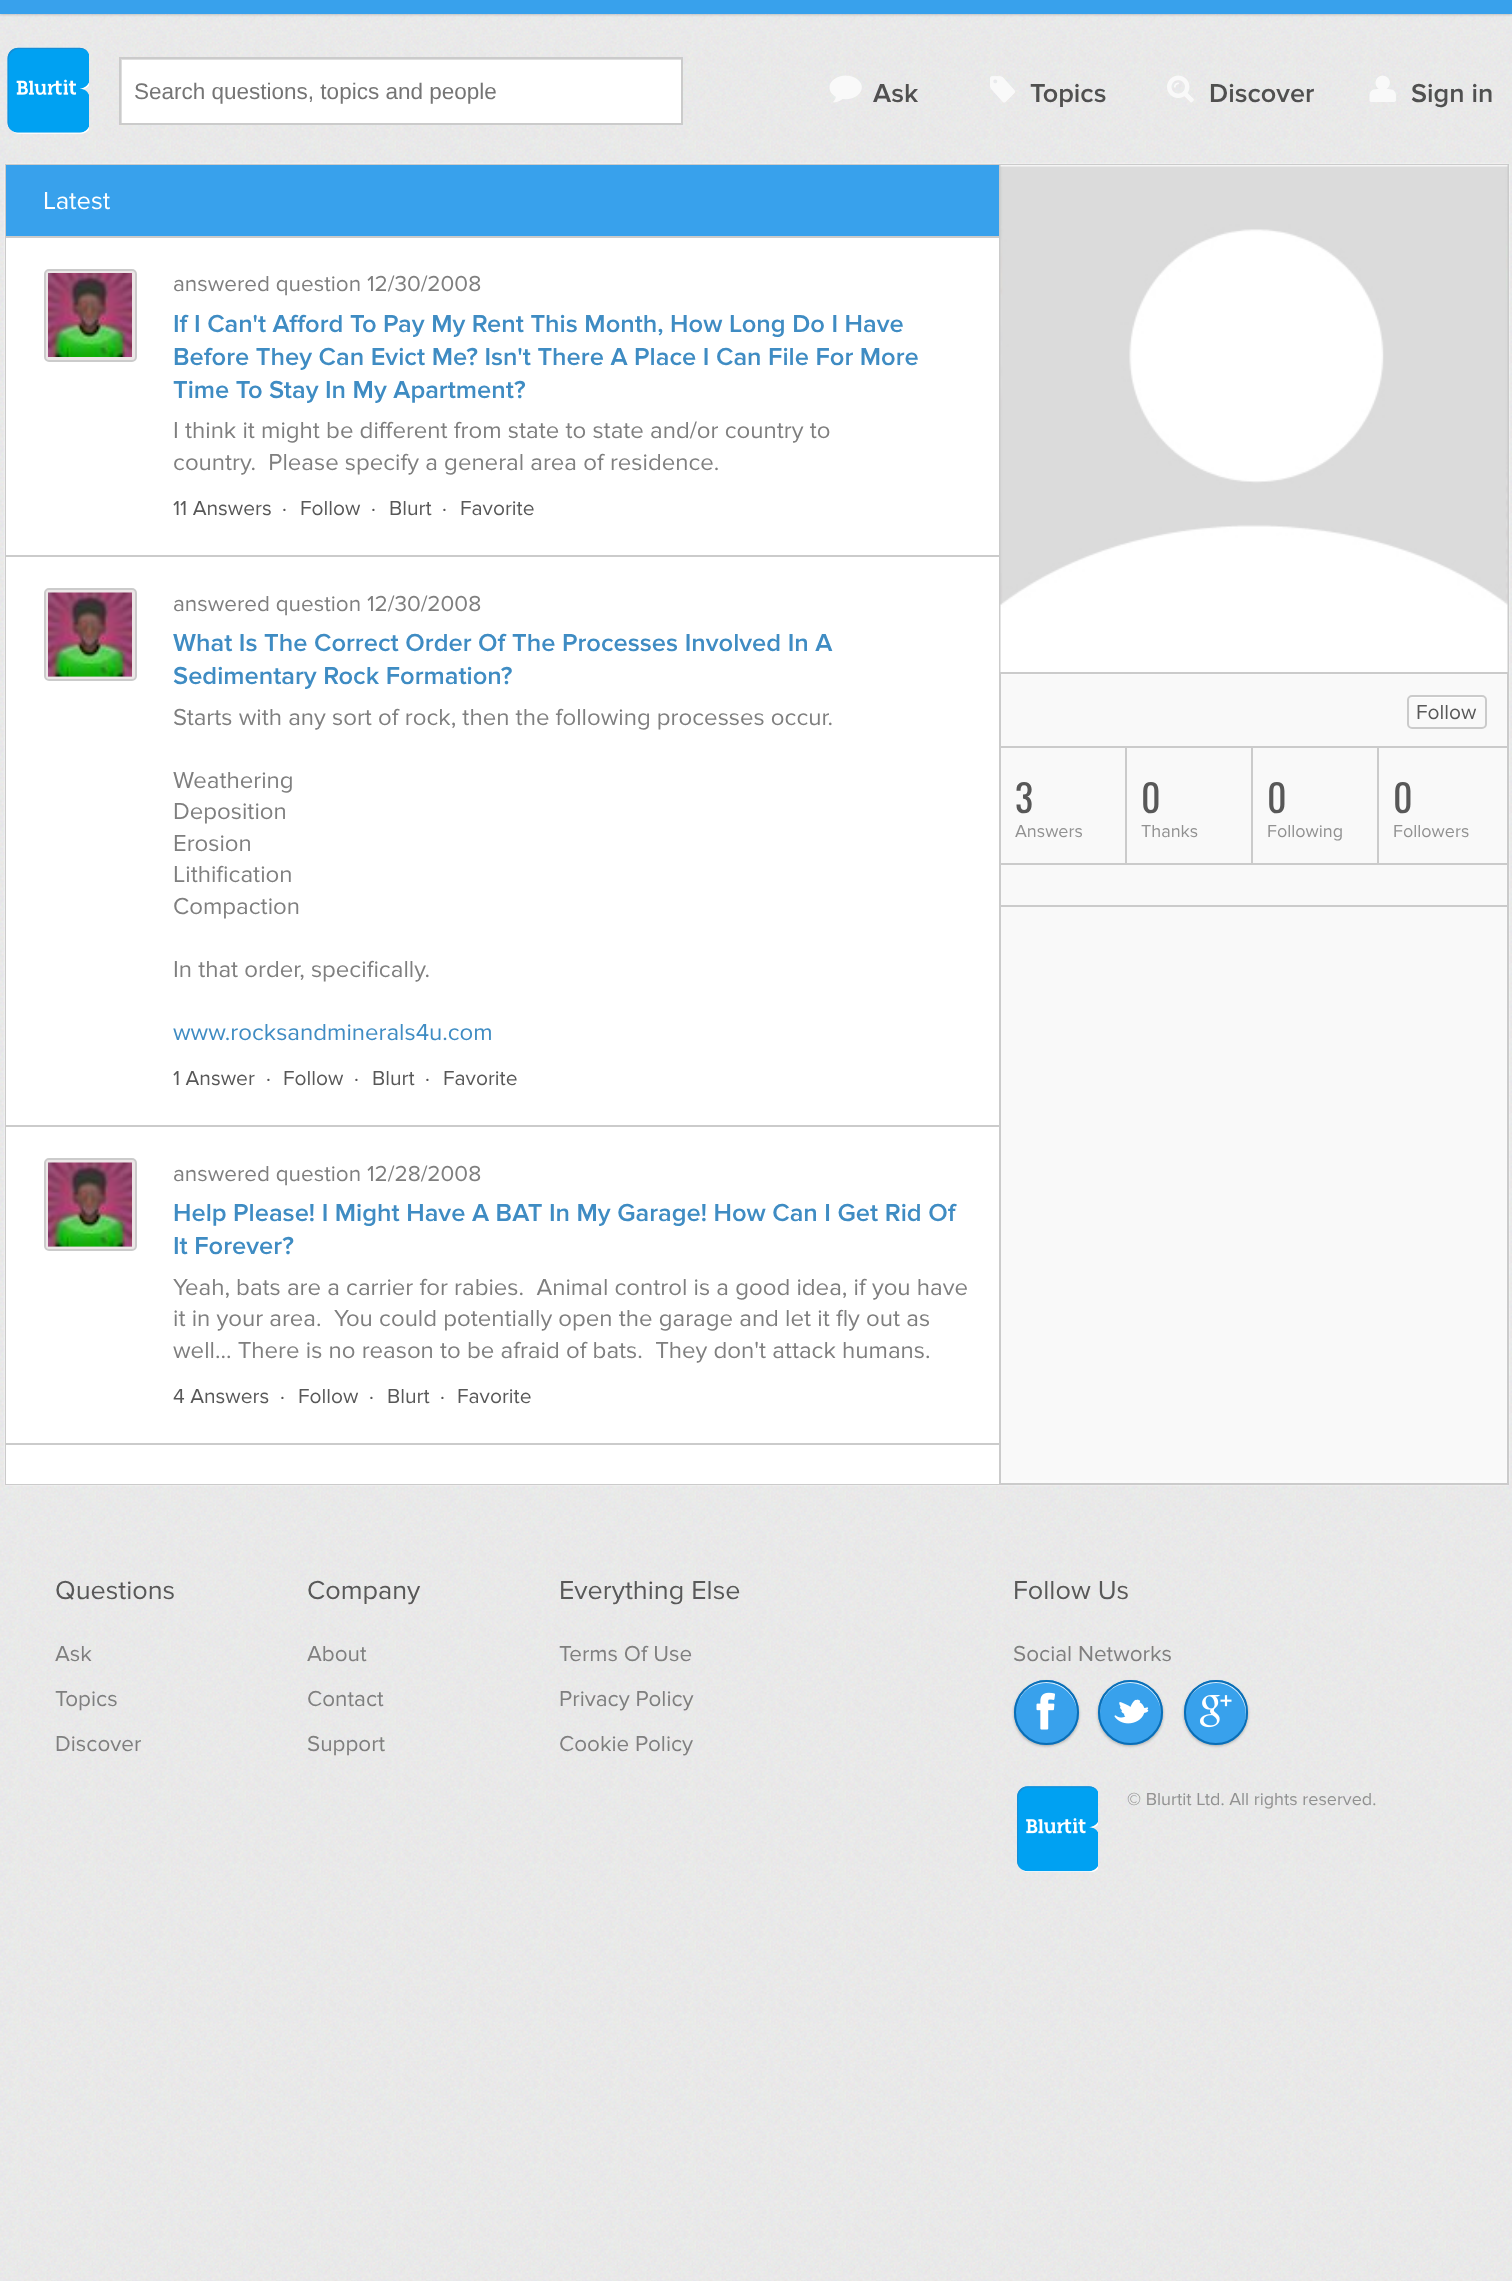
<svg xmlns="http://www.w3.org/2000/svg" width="1512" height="2281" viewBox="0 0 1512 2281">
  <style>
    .t1 { font: 22.5px Liberation Sans; fill: #757575; }
    .t2 { font: 600 27px Proxima Nova; fill: #505050; }
    .t3 { font: 25.5px Proxima Nova; fill: #fff; }
    .t4 { font: 22.5px Proxima Nova; fill: #7f7f7f; }
    .t5 { font: 600 25.5px Proxima Nova; fill: #3f8cc3; }
    .t6 { font: 24px Proxima Nova; fill: #7f7f7f; }
    .t7 { font: 21px Proxima Nova; fill: #585858; }
    .t8 { font: 24px Proxima Nova; fill: #3f8cc3; }
    .t9 { font: 38px Oswald; fill: #585858; }
    .t10 { font: 18px Proxima Nova; fill: #919191; }
    .t11 { font: 27px Proxima Nova; fill: #585858; }
  </style>
  <defs>
    <clipPath id="clip1"><rect x="120" y="59" width="561" height="64"/></clipPath>
  </defs>
  <rect width="100%" height="100%" fill="#fff"/>
  <image x="0" y="14" width="1512" height="2267" href="images/1.png"/>
  <rect x="0" y="2" width="1512" height="13" fill="#0000002b" filter="blur(1px)"/>
  <rect x="0" y="0" width="1512" height="14" fill="#38a1ec"/>
  <image x="7" y="47" width="82" height="87" href="images/2.png"/>
  <rect x="122" y="60" width="559" height="63" fill="#fff"/>
  <g clip-path="url(#clip1)">
    <path d="M-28-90H830V272H-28ZM122 60H682V124H122Z" fill="#dedede" fill-rule="evenodd"/>
  </g>
  <rect x="120" y="58" width="562" height="66" fill="none" stroke="#cbcbcb" stroke-width="2"/>
  <text x="134" y="99" class="t1">Search questions, topics and people</text>
  <image x="829" y="75" width="33" height="28" href="images/3.png"/>
  <text x="873" y="102" class="t2">Ask</text>
  <image x="990" y="76" width="25" height="27" href="images/4.png"/>
  <text x="1030" y="102" class="t2">Topics</text>
  <image x="1167" y="75" width="27" height="28" href="images/5.png"/>
  <text x="1209" y="102" class="t2">Discover</text>
  <image x="1369" y="75" width="27" height="27" href="images/6.png"/>
  <text x="1411" y="102" class="t2">Sign in</text>
  <rect x="5" y="164" width="1504" height="1321" fill="#ffffffcc" filter="blur(1px)"/>
  <rect x="1001" y="675" width="505" height="805" fill="#f9f9f9"/>
  <rect x="6" y="165" width="1502" height="1319" fill="none" stroke="#cbcbcb" stroke-width="2"/>
  <rect x="6" y="238" width="993" height="1246" fill="#fff"/>
  <rect x="999" y="165" width="2" height="1319" fill="#cbcbcb"/>
  <rect x="6" y="165" width="993" height="71" fill="#38a1ec"/>
  <rect x="6" y="236" width="993" height="2" fill="#cbcbcb"/>
  <text x="43" y="209" class="t3">Latest</text>
  <rect x="6" y="555" width="993" height="2" fill="#cbcbcb"/>
  <rect x="45" y="270" width="91" height="91" rx="4" fill="#ece6e7" stroke="#cbcbcb" stroke-width="2"/>
  <image x="48" y="273" width="84" height="84" href="images/7.png"/>
  <text x="173" y="291" class="t4">answered question 12/30/2008</text>
  <text x="173" y="332" class="t5">If I Can't Afford To Pay My Rent This Month, How Long Do I Have</text>
  <text x="173" y="365" class="t5">Before They Can Evict Me? Isn't There A Place I Can File For More</text>
  <text x="173" y="398" class="t5">Time To Stay In My Apartment?</text>
  <text x="173" y="438" class="t6">I think it might be different from state to state and/or country to</text>
  <text x="173" y="470" class="t6" xml:space="preserve">country.  Please specify a general area of residence.</text>
  <text x="173" y="515" class="t7">11 Answers</text>
  <text x="282" y="515" class="t7">·</text>
  <text x="300" y="515" class="t7">Follow</text>
  <text x="371" y="515" class="t7">·</text>
  <text x="389" y="515" class="t7">Blurt</text>
  <text x="442" y="515" class="t7">·</text>
  <text x="460" y="515" class="t7">Favorite</text>
  <rect x="6" y="1125" width="993" height="2" fill="#cbcbcb"/>
  <rect x="45" y="589" width="91" height="91" rx="4" fill="#ece6e7" stroke="#cbcbcb" stroke-width="2"/>
  <rect x="48" y="676" width="84" height="1" fill="#cbcbcb"/>
  <image x="48" y="592" width="84" height="85" href="images/8.png"/>
  <text x="173" y="611" class="t4">answered question 12/30/2008</text>
  <text x="173" y="651" class="t5">What Is The Correct Order Of The Processes Involved In A</text>
  <text x="173" y="684" class="t5">Sedimentary Rock Formation?</text>
  <text x="173" y="725" class="t6">Starts with any sort of rock, then the following processes occur.</text>
  <text x="173" y="788" class="t6">Weathering</text>
  <text x="173" y="819" class="t6">Deposition</text>
  <text x="173" y="851" class="t6">Erosion</text>
  <text x="173" y="882" class="t6">Lithification</text>
  <text x="173" y="914" class="t6">Compaction</text>
  <text x="173" y="977" class="t6">In that order, specifically.</text>
  <text x="173" y="1040" class="t8">www.rocksandminerals4u.com</text>
  <text x="173" y="1085" class="t7">1 Answer</text>
  <text x="266" y="1085" class="t7">·</text>
  <text x="283" y="1085" class="t7">Follow</text>
  <text x="354" y="1085" class="t7">·</text>
  <text x="372" y="1085" class="t7">Blurt</text>
  <text x="425" y="1085" class="t7">·</text>
  <text x="443" y="1085" class="t7">Favorite</text>
  <rect x="6" y="1443" width="993" height="2" fill="#cbcbcb"/>
  <rect x="45" y="1159" width="91" height="91" rx="4" fill="#ece6e7" stroke="#cbcbcb" stroke-width="2"/>
  <rect x="48" y="1246" width="84" height="1" fill="#cbcbcb"/>
  <image x="48" y="1162" width="84" height="85" href="images/9.png"/>
  <text x="173" y="1181" class="t4">answered question 12/28/2008</text>
  <text x="173" y="1221" class="t5">Help Please! I Might Have A BAT In My Garage! How Can I Get Rid Of</text>
  <text x="173" y="1254" class="t5">It Forever?</text>
  <text x="173" y="1295" class="t6" xml:space="preserve">Yeah, bats are a carrier for rabies.  Animal control is a good idea, if you have</text>
  <text x="173" y="1326" class="t6" xml:space="preserve">it in your area.  You could potentially open the garage and let it fly out as</text>
  <text x="173" y="1358" class="t6" xml:space="preserve">well... There is no reason to be afraid of bats.  They don't attack humans.</text>
  <text x="173" y="1403" class="t7">4 Answers</text>
  <text x="280" y="1403" class="t7">·</text>
  <text x="298" y="1403" class="t7">Follow</text>
  <text x="369" y="1403" class="t7">·</text>
  <text x="387" y="1403" class="t7">Blurt</text>
  <text x="440" y="1403" class="t7">·</text>
  <text x="457" y="1403" class="t7">Favorite</text>
  <image x="1000" y="165" width="508" height="507" href="images/10.png"/>
  <rect x="1001" y="672" width="507" height="2" fill="#cbcbcb"/>
  <rect x="1001" y="746" width="507" height="2" fill="#cbcbcb"/>
  <path d="M1412 698H1482C1484 698 1485 699 1485 700V699C1485 697 1484 696 1482 696H1412C1410 696 1409 697 1409 699Z" fill="#fefefe"/>
  <rect x="1408" y="696" width="78" height="32" rx="4" fill="none" stroke="#cbcbcb" stroke-width="2"/>
  <text x="1416" y="719" class="t7">Follow</text>
  <rect x="1001" y="863" width="507" height="2" fill="#cbcbcb"/>
  <rect x="1125" y="747" width="2" height="116" fill="#cbcbcb"/>
  <text x="1015" y="813" class="t9">3</text>
  <text x="1015" y="837" class="t10">Answers</text>
  <rect x="1251" y="747" width="2" height="116" fill="#cbcbcb"/>
  <text x="1141" y="813" class="t9">0</text>
  <text x="1141" y="837" class="t10">Thanks</text>
  <rect x="1377" y="747" width="2" height="116" fill="#cbcbcb"/>
  <text x="1267" y="813" class="t9">0</text>
  <text x="1267" y="837" class="t10">Following</text>
  <text x="1393" y="813" class="t9">0</text>
  <text x="1393" y="837" class="t10">Followers</text>
  <rect x="1001" y="905" width="507" height="2" fill="#cbcbcb"/>
  <text x="55" y="1599" class="t11">Questions</text>
  <text x="55" y="1661" class="t4">Ask</text>
  <text x="55" y="1706" class="t4">Topics</text>
  <text x="55" y="1751" class="t4">Discover</text>
  <text x="307" y="1599" class="t11">Company</text>
  <text x="307" y="1661" class="t4">About</text>
  <text x="307" y="1706" class="t4">Contact</text>
  <text x="307" y="1751" class="t4">Support</text>
  <text x="559" y="1599" class="t11">Everything Else</text>
  <text x="559" y="1661" class="t4">Terms Of Use</text>
  <text x="559" y="1706" class="t4">Privacy Policy</text>
  <text x="559" y="1751" class="t4">Cookie Policy</text>
  <text x="1013" y="1599" class="t11">Follow Us</text>
  <text x="1013" y="1661" class="t4">Social Networks</text>
  <rect x="1014" y="1682" width="65" height="64" rx="32" fill="#0000004a" filter="blur(1.5px)"/>
  <circle cx="1046.5" cy="1712.5" r="32.5" fill="#38a1ec"/>
  <path d="M1046 1683C1063 1683 1077 1697 1077 1713C1078 1683 1038 1670 1021 1695C1018 1701 1016 1707 1016 1713C1016 1697 1029 1683 1046 1683Z" fill="#d7ecfb"/>
  <circle cx="1046.5" cy="1712.5" r="31.5" fill="none" stroke="#0a6eb6" stroke-width="2"/>
  <image x="1036" y="1692" width="19" height="38" href="images/11.png"/>
  <rect x="1098" y="1682" width="65" height="64" rx="32" fill="#0000004a" filter="blur(1.5px)"/>
  <circle cx="1130.5" cy="1712.5" r="32.5" fill="#38a1ec"/>
  <path d="M1130 1683C1147 1683 1161 1697 1161 1713C1162 1683 1122 1670 1105 1695C1102 1701 1100 1707 1100 1713C1100 1697 1113 1683 1130 1683Z" fill="#d7ecfb"/>
  <circle cx="1130.5" cy="1712.5" r="31.5" fill="none" stroke="#0a6eb6" stroke-width="2"/>
  <image x="1114" y="1699" width="35" height="25" href="images/12.png"/>
  <rect x="1184" y="1682" width="64" height="64" rx="32" fill="#0000004a" filter="blur(1.5px)"/>
  <rect x="1184" y="1680" width="64" height="65" rx="32" fill="#38a1ec"/>
  <path d="M1216 1683C1239 1683 1253 1709 1242 1729C1261 1698 1220 1665 1194 1691C1188 1697 1185 1705 1185 1713C1185 1697 1199 1683 1216 1683Z" fill="#d7ecfb"/>
  <rect x="1185" y="1681" width="62" height="63" rx="31" fill="none" stroke="#0a6eb6" stroke-width="2"/>
  <image x="1200" y="1695" width="32" height="33" href="images/13.png"/>
  <image x="1017" y="1786" width="81" height="86" href="images/14.png"/>
  <text x="1127" y="1805" class="t10">© Blurtit Ltd. All rights reserved.</text>
</svg>
